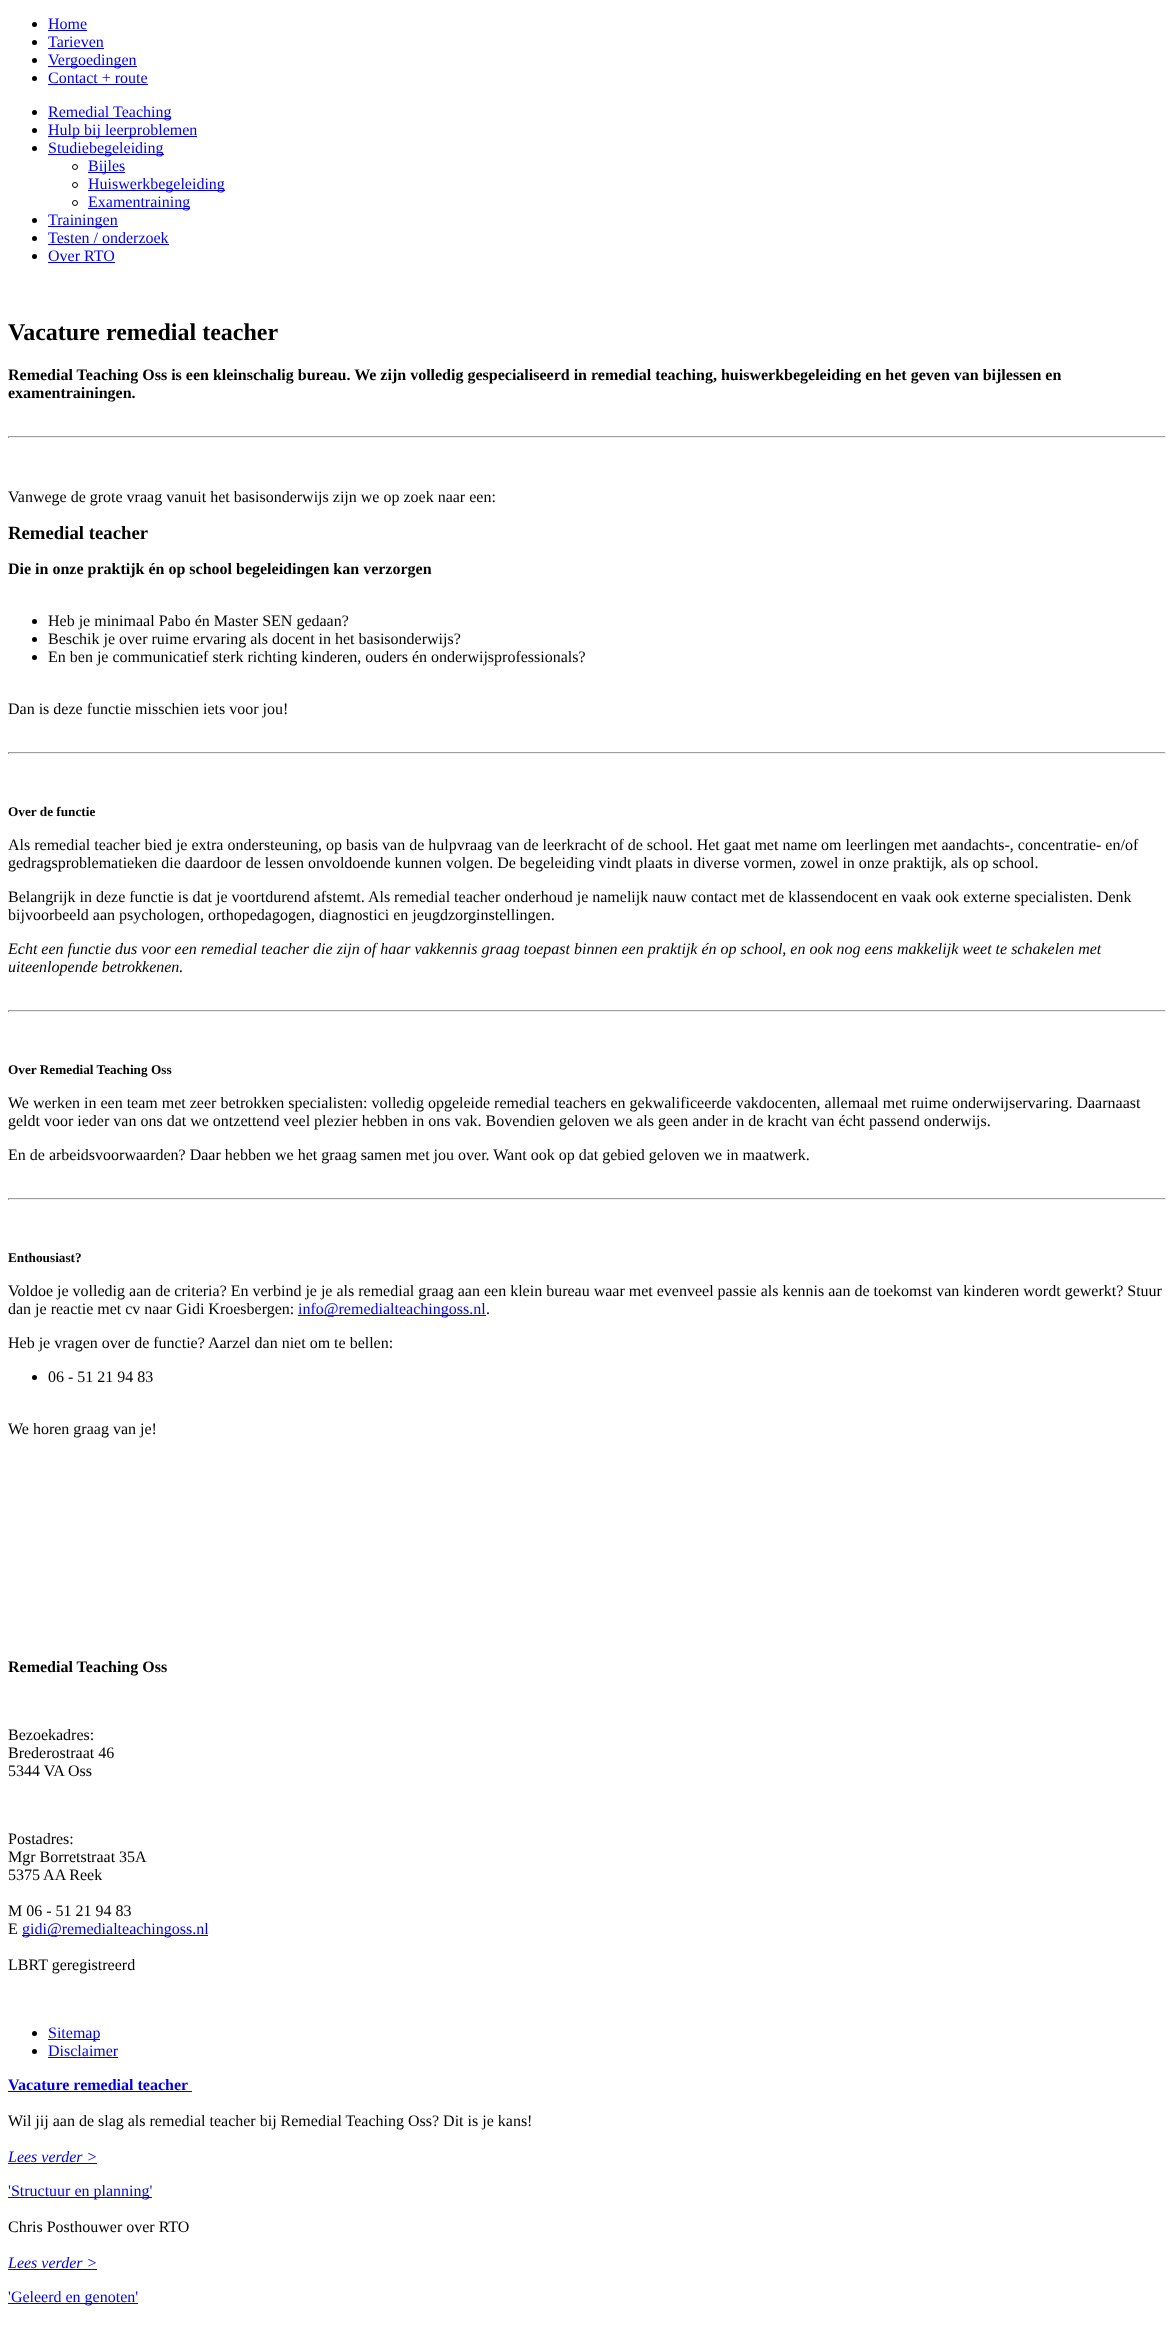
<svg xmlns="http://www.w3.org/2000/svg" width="1174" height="2326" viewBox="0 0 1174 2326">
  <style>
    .t1 { font: 16px Liberation Serif; fill: #00e; }
    .t2 { font: bold 24px Liberation Serif; fill: #000; }
    .t3 { font: bold 16px Liberation Serif; fill: #000; }
    .t4 { font: 16px Liberation Serif; fill: #000; }
    .t5 { font: bold 18.75px Liberation Serif; fill: #000; }
    .t6 { font: bold 13.25px Liberation Serif; fill: #000; }
    .t7 { font: italic 16px Liberation Serif; fill: #000; }
    .t8 { font: bold 16px Liberation Serif; fill: #00e; }
    .t9 { font: italic 16px Liberation Serif; fill: #00e; }
  </style>
  <rect width="100%" height="100%" fill="#fff"/>
  <circle cx="34.5" cy="24.5" r="2.5" fill="#000"/>
  <text x="48" y="29" class="t1">Home</text>
  <rect x="48" y="30" width="39" height="1" fill="#00e"/>
  <circle cx="34.5" cy="42.5" r="2.5" fill="#000"/>
  <text x="48" y="47" class="t1">Tarieven</text>
  <rect x="48" y="48" width="56" height="1" fill="#00e"/>
  <circle cx="34.5" cy="60.5" r="2.5" fill="#000"/>
  <rect x="48" y="66" width="89" height="1" fill="#00e"/>
  <text x="48" y="65" class="t1">Vergoedingen</text>
  <circle cx="34.5" cy="78.5" r="2.5" fill="#000"/>
  <text x="48" y="83" class="t1">Contact + route</text>
  <rect x="48" y="84" width="100" height="1" fill="#00e"/>
  <circle cx="34.5" cy="112.5" r="2.5" fill="#000"/>
  <rect x="48" y="118" width="123" height="1" fill="#00e"/>
  <text x="48" y="117" class="t1">Remedial Teaching</text>
  <circle cx="34.5" cy="130.5" r="2.5" fill="#000"/>
  <rect x="48" y="136" width="149" height="1" fill="#00e"/>
  <text x="48" y="135" class="t1">Hulp bij leerproblemen</text>
  <circle cx="34.5" cy="148.5" r="2.5" fill="#000"/>
  <rect x="48" y="154" width="116" height="1" fill="#00e"/>
  <text x="48" y="153" class="t1">Studiebegeleiding</text>
  <circle cx="75" cy="167" r="2.5" fill="none" stroke="#000"/>
  <rect x="88" y="172" width="37" height="1" fill="#00e"/>
  <text x="88" y="171" class="t1">Bijles</text>
  <circle cx="75" cy="185" r="2.5" fill="none" stroke="#000"/>
  <rect x="88" y="190" width="137" height="1" fill="#00e"/>
  <text x="88" y="189" class="t1">Huiswerkbegeleiding</text>
  <circle cx="75" cy="203" r="2.5" fill="none" stroke="#000"/>
  <rect x="88" y="208" width="102" height="1" fill="#00e"/>
  <text x="88" y="207" class="t1">Examentraining</text>
  <circle cx="34.5" cy="220.5" r="2.5" fill="#000"/>
  <rect x="48" y="226" width="70" height="1" fill="#00e"/>
  <text x="48" y="225" class="t1">Trainingen</text>
  <circle cx="34.5" cy="238.5" r="2.5" fill="#000"/>
  <text x="48" y="243" class="t1">Testen / onderzoek</text>
  <rect x="48" y="244" width="121" height="1" fill="#00e"/>
  <circle cx="34.5" cy="256.5" r="2.5" fill="#000"/>
  <text x="48" y="261" class="t1">Over RTO</text>
  <rect x="48" y="262" width="67" height="1" fill="#00e"/>
  <text x="8" y="340" class="t2">Vacature remedial teacher</text>
  <text x="8" y="380" class="t3">Remedial Teaching Oss is een kleinschalig bureau. We zijn volledig gespecialiseerd in remedial teaching, huiswerkbegeleiding en het geven van bijlessen en</text>
  <text x="8" y="398" class="t3">examentrainingen.</text>
  <rect x="8" y="436" width="1158" height="1" fill="#9f9f9f"/>
  <rect x="1165" y="436" width="1" height="2" fill="#eee"/>
  <rect x="8" y="437" width="1158" height="1" fill="#eee"/>
  <rect x="8" y="436" width="1" height="2" fill="#9f9f9f"/>
  <text x="8" y="502" class="t4">Vanwege de grote vraag vanuit het basisonderwijs zijn we op zoek naar een:</text>
  <text x="8" y="539" class="t5">Remedial teacher</text>
  <text x="8" y="574" class="t3">Die in onze praktijk én op school begeleidingen kan verzorgen</text>
  <circle cx="34.5" cy="621.5" r="2.5" fill="#000"/>
  <text x="48" y="626" class="t4">Heb je minimaal Pabo én Master SEN gedaan?</text>
  <circle cx="34.5" cy="639.5" r="2.5" fill="#000"/>
  <text x="48" y="644" class="t4">Beschik je over ruime ervaring als docent in het basisonderwijs?</text>
  <circle cx="34.5" cy="657.5" r="2.5" fill="#000"/>
  <text x="48" y="662" class="t4">En ben je communicatief sterk richting kinderen, ouders én onderwijsprofessionals?</text>
  <text x="8" y="714" class="t4">Dan is deze functie misschien iets voor jou!</text>
  <rect x="8" y="752" width="1158" height="1" fill="#9f9f9f"/>
  <rect x="1165" y="752" width="1" height="2" fill="#eee"/>
  <rect x="8" y="753" width="1158" height="1" fill="#eee"/>
  <rect x="8" y="752" width="1" height="2" fill="#9f9f9f"/>
  <text x="8" y="816" class="t6">Over de functie</text>
  <text x="8" y="850" class="t4">Als remedial teacher bied je extra ondersteuning, op basis van de hulpvraag van de leerkracht of de school. Het gaat met name om leerlingen met aandachts-, concentratie- en/of</text>
  <text x="8" y="868" class="t4">gedragsproblematieken die daardoor de lessen onvoldoende kunnen volgen. De begeleiding vindt plaats in diverse vormen, zowel in onze praktijk, als op school.</text>
  <text x="8" y="902" class="t4">Belangrijk in deze functie is dat je voortdurend afstemt. Als remedial teacher onderhoud je namelijk nauw contact met de klassendocent en vaak ook externe specialisten. Denk</text>
  <text x="8" y="920" class="t4">bijvoorbeeld aan psychologen, orthopedagogen, diagnostici en jeugdzorginstellingen.</text>
  <text x="8" y="954" class="t7">Echt een functie dus voor een remedial teacher die zijn of haar vakkennis graag toepast binnen een praktijk én op school, en ook nog eens makkelijk weet te schakelen met</text>
  <text x="8" y="972" class="t7">uiteenlopende betrokkenen.</text>
  <rect x="8" y="1010" width="1158" height="1" fill="#9f9f9f"/>
  <rect x="1165" y="1010" width="1" height="2" fill="#eee"/>
  <rect x="8" y="1011" width="1158" height="1" fill="#eee"/>
  <rect x="8" y="1010" width="1" height="2" fill="#9f9f9f"/>
  <text x="8" y="1074" class="t6">Over Remedial Teaching Oss</text>
  <text x="8" y="1108" class="t4">We werken in een team met zeer betrokken specialisten: volledig opgeleide remedial teachers en gekwalificeerde vakdocenten, allemaal met ruime onderwijservaring. Daarnaast</text>
  <text x="8" y="1126" class="t4">geldt voor ieder van ons dat we ontzettend veel plezier hebben in ons vak. Bovendien geloven we als geen ander in de kracht van écht passend onderwijs.</text>
  <text x="8" y="1160" class="t4">En de arbeidsvoorwaarden? Daar hebben we het graag samen met jou over. Want ook op dat gebied geloven we in maatwerk.</text>
  <rect x="8" y="1198" width="1158" height="1" fill="#9f9f9f"/>
  <rect x="1165" y="1198" width="1" height="2" fill="#eee"/>
  <rect x="8" y="1199" width="1158" height="1" fill="#eee"/>
  <rect x="8" y="1198" width="1" height="2" fill="#9f9f9f"/>
  <text x="8" y="1262" class="t6">Enthousiast?</text>
  <text x="8" y="1296" class="t4">Voldoe je volledig aan de criteria? En verbind je je als remedial graag aan een klein bureau waar met evenveel passie als kennis aan de toekomst van kinderen wordt gewerkt? Stuur</text>
  <text x="8" y="1314" class="t4">dan je reactie met cv naar Gidi Kroesbergen:</text>
  <rect x="298" y="1315" width="188" height="1" fill="#00e"/>
  <text x="298" y="1314" class="t1">info@remedialteachingoss.nl</text>
  <text x="486" y="1314" class="t4">.</text>
  <text x="8" y="1348" class="t4">Heb je vragen over de functie? Aarzel dan niet om te bellen:</text>
  <circle cx="34.5" cy="1377.5" r="2.5" fill="#000"/>
  <text x="48" y="1382" class="t4">06 - 51 21 94 83</text>
  <text x="8" y="1434" class="t4">We horen graag van je!</text>
  <text x="8" y="1672" class="t3">Remedial Teaching Oss</text>
  <text x="8" y="1740" class="t4">Bezoekadres:</text>
  <text x="8" y="1758" class="t4">Brederostraat 46</text>
  <text x="8" y="1776" class="t4">5344 VA Oss</text>
  <text x="8" y="1844" class="t4">Postadres:</text>
  <text x="8" y="1862" class="t4">Mgr Borretstraat 35A</text>
  <text x="8" y="1880" class="t4">5375 AA Reek</text>
  <text x="8" y="1916" class="t4">M 06 - 51 21 94 83</text>
  <text x="8" y="1934" class="t4">E</text>
  <rect x="22" y="1935" width="186" height="1" fill="#00e"/>
  <text x="22" y="1934" class="t1">gidi@remedialteachingoss.nl</text>
  <text x="8" y="1970" class="t4">LBRT geregistreerd</text>
  <circle cx="34.5" cy="2033.5" r="2.5" fill="#000"/>
  <rect x="48" y="2039" width="52" height="1" fill="#00e"/>
  <text x="48" y="2038" class="t1">Sitemap</text>
  <circle cx="34.5" cy="2051.5" r="2.5" fill="#000"/>
  <text x="48" y="2056" class="t1">Disclaimer</text>
  <rect x="48" y="2057" width="70" height="1" fill="#00e"/>
  <text x="8" y="2090" class="t8">Vacature remedial teacher</text>
  <rect x="8" y="2091" width="184" height="1" fill="#00e"/>
  <text x="8" y="2126" class="t4">Wil jij aan de slag als remedial teacher bij Remedial Teaching Oss? Dit is je kans!</text>
  <text x="8" y="2162" class="t9">Lees verder &gt;</text>
  <rect x="8" y="2163" width="89" height="1" fill="#00e"/>
  <rect x="8" y="2197" width="144" height="1" fill="#00e"/>
  <text x="8" y="2196" class="t1">'Structuur en planning'</text>
  <text x="8" y="2232" class="t4">Chris Posthouwer over RTO</text>
  <text x="8" y="2268" class="t9">Lees verder &gt;</text>
  <rect x="8" y="2269" width="89" height="1" fill="#00e"/>
  <rect x="8" y="2303" width="130" height="1" fill="#00e"/>
  <text x="8" y="2302" class="t1">'Geleerd en genoten'</text>
</svg>
